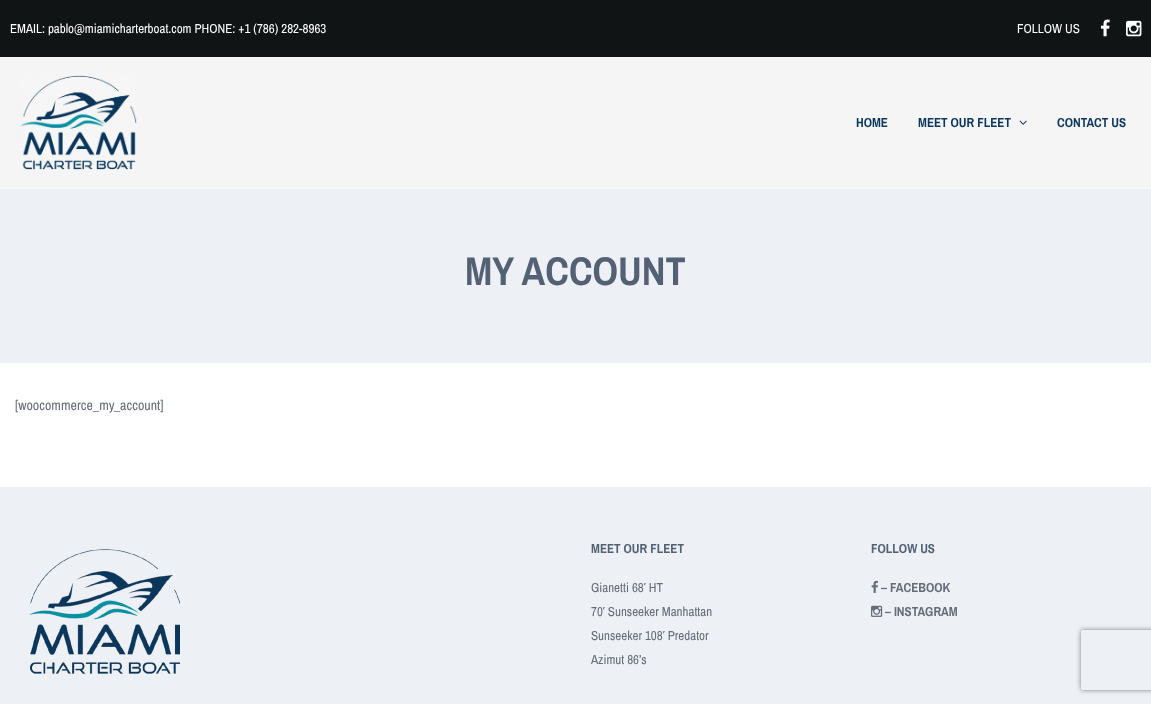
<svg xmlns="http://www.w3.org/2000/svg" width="1151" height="704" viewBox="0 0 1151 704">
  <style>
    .t1 { font: 13px Archivo Narrow; fill: #fff; }
    .t2 { font: bold 13px Archivo Narrow; fill: #0b375c; }
    .t3 { font: bold 40px Archivo Narrow; fill: #546175; }
    .t4 { font: 14px Archivo Narrow; fill: #676c77; }
    .t5 { font: bold 13px Archivo Narrow; fill: #546175; }
    .t6 { font: 13px Archivo Narrow; fill: #676c77; }
    .t7 { font: bold 13px Archivo Narrow; fill: #676c77; }
  </style>
  <defs>
    <clipPath id="clip1"><path d="M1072 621H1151V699H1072ZM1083 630H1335C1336 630 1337 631 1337 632V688C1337 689 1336 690 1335 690H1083C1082 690 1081 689 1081 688V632C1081 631 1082 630 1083 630Z" clip-rule="evenodd"/></clipPath>
  </defs>
  <rect width="100%" height="100%" fill="#fff"/>
  <rect x="0" y="0" width="1151" height="57" fill="#101415"/>
  <text x="10" y="33" class="t1">EMAIL: pablo@miamicharterboat.com PHONE: +1 (786) 282-8963</text>
  <text x="1017" y="33" class="t1">FOLLOW US</text>
  <image x="1100" y="19" width="10" height="18" href="images/1.png"/>
  <image x="1126" y="20" width="16" height="17" href="images/2.png"/>
  <rect x="0" y="57" width="1151" height="132" fill="#f5f5f5"/>
  <image x="20" y="75" width="117" height="95" href="images/3.png"/>
  <text x="856" y="127" class="t2">HOME</text>
  <text x="918" y="127" class="t2">MEET OUR FLEET</text>
  <image x="1019" y="120" width="8" height="5" href="images/4.png"/>
  <text x="1057" y="127" class="t2">CONTACT US</text>
  <rect x="0" y="189" width="1151" height="174" fill="#edf0f5"/>
  <text x="465" y="285" class="t3">MY ACCOUNT</text>
  <text x="15" y="410" class="t4">[woocommerce_my_account]</text>
  <rect x="0" y="487" width="1151" height="217" fill="#edf0f5"/>
  <image x="30" y="549" width="150" height="125" href="images/5.png"/>
  <text x="591" y="553" class="t5">MEET OUR FLEET</text>
  <text x="591" y="592" class="t6">Gianetti 68′ HT</text>
  <text x="591" y="616" class="t6">70′ Sunseeker Manhattan</text>
  <text x="591" y="640" class="t6">Sunseeker 108′ Predator</text>
  <text x="591" y="664" class="t6">Azimut 86’s</text>
  <text x="871" y="553" class="t5">FOLLOW US</text>
  <image x="871" y="580" width="7" height="13" href="images/6.png"/>
  <text x="881" y="592" class="t7">– FACEBOOK</text>
  <image x="871" y="605" width="12" height="12" href="images/7.png"/>
  <text x="885" y="616" class="t7">– INSTAGRAM</text>
  <g clip-path="url(#clip1)">
    <rect x="1081" y="630" width="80" height="60" rx="2" fill="#808080" filter="blur(2.5px)"/>
  </g>
</svg>
